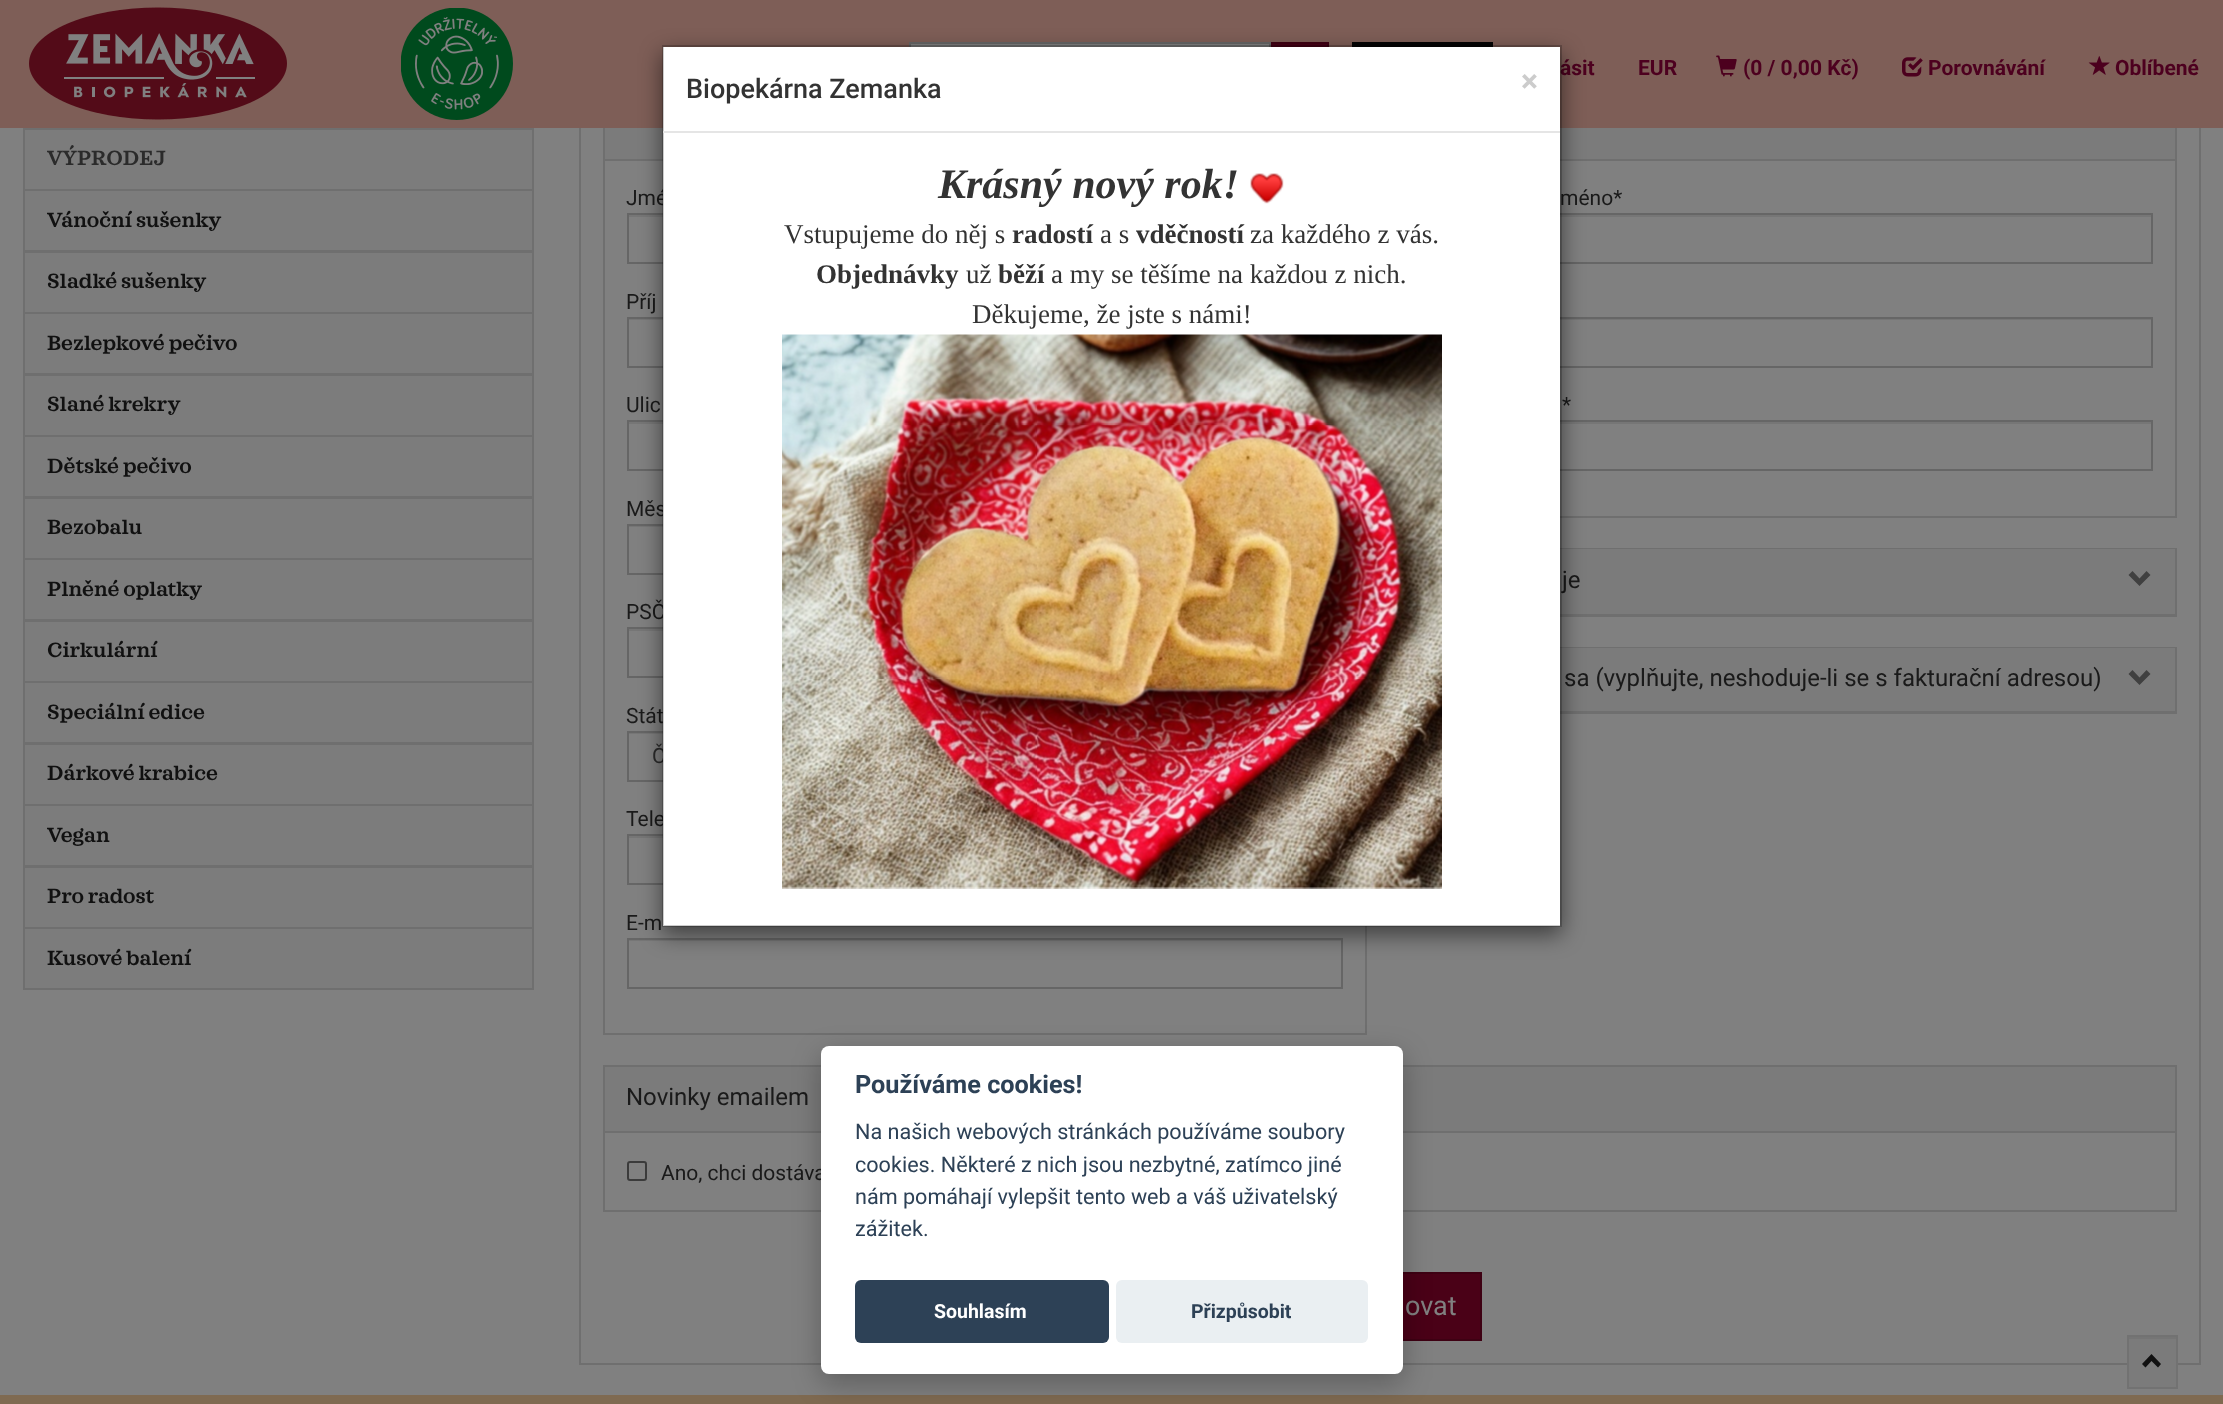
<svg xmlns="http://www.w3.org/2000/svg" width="2223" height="1404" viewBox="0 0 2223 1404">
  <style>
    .t1 { font: bold 21px Roboto; fill: #4d001f; }
    .t2 { font: 600 21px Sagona; fill: #2b2b2b; }
    .t3 { font: 600 21px Sagona; fill: #111; }
    .t4 { font: 21px Roboto; fill: #1a1a1a; }
    .t5 { font: 21px Roboto; fill: #2b2b2b; }
    .t6 { font: 24px Roboto; fill: #1a1a1a; }
    .t7 { font: 27px Roboto; fill: #808080; }
    .t8 { font: 500 27px Roboto; fill: #333; }
    .t9 { font: bold 32px Roboto; fill: #ccc; }
    .t10 { font: italic bold 42px Liberation Serif; fill: #333; }
    .t11 { font: 27px Liberation Serif; fill: #333; }
    .t12 { font: bold 27px Liberation Serif; fill: #333; }
    .t13 { font: bold 25.25px Roboto; fill: #2d4156; }
    .t14 { font: 21.6px Roboto; fill: #2d4156; }
    .t15 { font: bold 19.5px Roboto; fill: #fff; }
    .t16 { font: bold 19.5px Roboto; fill: #2d4156; }
  </style>
  <rect width="100%" height="100%" fill="#808080"/>
  <rect x="580" y="4" width="1620" height="1360" fill="none" stroke="#6f6f6f" stroke-width="2"/>
  <rect x="604" y="94" width="762" height="940" fill="none" stroke="#6f6f6f" stroke-width="2"/>
  <rect x="1413" y="94" width="763" height="423" fill="none" stroke="#6f6f6f" stroke-width="2"/>
  <rect x="0" y="0" width="2223" height="128" fill="#7e5e57"/>
  <image x="29" y="7" width="258" height="113" href="images/1.png"/>
  <image x="401" y="8" width="112" height="112" href="images/2.png"/>
  <rect x="911" y="44" width="358" height="3" fill="#808080"/>
  <rect x="1271" y="44" width="56" height="3" fill="#4a0117"/>
  <rect x="1270" y="43" width="58" height="49" fill="none" stroke="#3e0113" stroke-width="2"/>
  <rect x="910" y="43" width="360" height="49" fill="none" stroke="#666" stroke-width="2"/>
  <rect x="1352" y="42" width="141" height="5" fill="#040404"/>
  <text x="1560" y="75" class="t1">ásit</text>
  <text x="1638" y="75" class="t1">EUR</text>
  <image x="1716" y="55" width="21" height="22" href="images/3.png"/>
  <text x="1743" y="75" class="t1">(0 / 0,00 Kč)</text>
  <image x="1902" y="57" width="21" height="20" href="images/4.png"/>
  <text x="1928" y="75" class="t1">Porovnávání</text>
  <image x="2088" y="56" width="22" height="19" href="images/5.png"/>
  <text x="2115" y="75" class="t1">Oblíbené</text>
  <rect x="25" y="130" width="507" height="858" fill="#7c7c7c"/>
  <rect x="24" y="129" width="509" height="61" fill="none" stroke="#6f6f6f" stroke-width="2"/>
  <text x="47" y="165" class="t2">VÝPRODEJ</text>
  <rect x="24" y="190" width="509" height="61" fill="none" stroke="#6f6f6f" stroke-width="2"/>
  <text x="47" y="227" class="t3">Vánoční sušenky</text>
  <rect x="24" y="252" width="509" height="61" fill="none" stroke="#6f6f6f" stroke-width="2"/>
  <text x="47" y="288" class="t3">Sladké sušenky</text>
  <rect x="24" y="313" width="509" height="61" fill="none" stroke="#6f6f6f" stroke-width="2"/>
  <text x="47" y="350" class="t3">Bezlepkové pečivo</text>
  <rect x="24" y="375" width="509" height="61" fill="none" stroke="#6f6f6f" stroke-width="2"/>
  <text x="47" y="411" class="t3">Slané krekry</text>
  <rect x="24" y="436" width="509" height="61" fill="none" stroke="#6f6f6f" stroke-width="2"/>
  <text x="47" y="473" class="t3">Dětské pečivo</text>
  <rect x="24" y="498" width="509" height="61" fill="none" stroke="#6f6f6f" stroke-width="2"/>
  <text x="47" y="534" class="t3">Bezobalu</text>
  <rect x="24" y="559" width="509" height="61" fill="none" stroke="#6f6f6f" stroke-width="2"/>
  <text x="47" y="596" class="t3">Plněné oplatky</text>
  <rect x="24" y="621" width="509" height="61" fill="none" stroke="#6f6f6f" stroke-width="2"/>
  <text x="47" y="657" class="t3">Cirkulární</text>
  <rect x="24" y="682" width="509" height="61" fill="none" stroke="#6f6f6f" stroke-width="2"/>
  <text x="47" y="719" class="t3">Speciální edice</text>
  <rect x="24" y="744" width="509" height="61" fill="none" stroke="#6f6f6f" stroke-width="2"/>
  <text x="47" y="780" class="t3">Dárkové krabice</text>
  <rect x="24" y="805" width="509" height="61" fill="none" stroke="#6f6f6f" stroke-width="2"/>
  <text x="47" y="842" class="t3">Vegan</text>
  <rect x="24" y="867" width="509" height="61" fill="none" stroke="#6f6f6f" stroke-width="2"/>
  <text x="47" y="903" class="t3">Pro radost</text>
  <rect x="24" y="928" width="509" height="61" fill="none" stroke="#6f6f6f" stroke-width="2"/>
  <text x="47" y="965" class="t3">Kusové balení</text>
  <rect x="605" y="128" width="58" height="31" fill="#7b7b7b"/>
  <rect x="605" y="159" width="58" height="2" fill="#6f6f6f"/>
  <text x="626" y="205" class="t4">Jmé</text>
  <rect x="629" y="215" width="34" height="2" fill="#767676"/>
  <rect x="628" y="214" width="714" height="49" fill="none" stroke="#666" stroke-width="2"/>
  <text x="626" y="309" class="t4">Příj</text>
  <rect x="629" y="319" width="34" height="1" fill="#767676"/>
  <rect x="628" y="318" width="714" height="49" fill="none" stroke="#666" stroke-width="2"/>
  <text x="626" y="412" class="t4">Ulic</text>
  <rect x="629" y="422" width="34" height="2" fill="#767676"/>
  <rect x="628" y="421" width="714" height="49" fill="none" stroke="#666" stroke-width="2"/>
  <text x="626" y="516" class="t4">Měs</text>
  <rect x="629" y="526" width="34" height="1" fill="#767676"/>
  <rect x="628" y="525" width="714" height="49" fill="none" stroke="#666" stroke-width="2"/>
  <text x="626" y="619" class="t4">PSČ</text>
  <rect x="629" y="629" width="34" height="2" fill="#767676"/>
  <rect x="628" y="628" width="714" height="49" fill="none" stroke="#666" stroke-width="2"/>
  <text x="626" y="723" class="t4">Stát</text>
  <rect x="629" y="733" width="34" height="1" fill="#767676"/>
  <rect x="628" y="732" width="714" height="49" fill="none" stroke="#666" stroke-width="2"/>
  <text x="652" y="763" class="t5">Č</text>
  <text x="626" y="826" class="t4">Tele</text>
  <rect x="629" y="836" width="34" height="2" fill="#767676"/>
  <rect x="628" y="835" width="714" height="49" fill="none" stroke="#666" stroke-width="2"/>
  <text x="626" y="930" class="t4">E-m</text>
  <rect x="629" y="940" width="712" height="1" fill="#767676"/>
  <rect x="628" y="939" width="714" height="49" fill="none" stroke="#666" stroke-width="2"/>
  <rect x="1560" y="128" width="615" height="31" fill="#7b7b7b"/>
  <rect x="1560" y="159" width="615" height="2" fill="#6f6f6f"/>
  <text x="1560" y="205" class="t4">méno*</text>
  <rect x="1560" y="215" width="591" height="2" fill="#767676"/>
  <rect x="1437" y="214" width="715" height="49" fill="none" stroke="#666" stroke-width="2"/>
  <rect x="1560" y="319" width="591" height="1" fill="#767676"/>
  <rect x="1437" y="318" width="715" height="49" fill="none" stroke="#666" stroke-width="2"/>
  <text x="1562" y="412" class="t4">*</text>
  <rect x="1560" y="422" width="591" height="2" fill="#767676"/>
  <rect x="1437" y="421" width="715" height="49" fill="none" stroke="#666" stroke-width="2"/>
  <rect x="1413" y="549" width="763" height="67" fill="none" stroke="#6f6f6f" stroke-width="2"/>
  <rect x="1560" y="549" width="615" height="65" fill="#7b7b7b"/>
  <rect x="1560" y="614" width="615" height="1" fill="#6f6f6f"/>
  <text x="1562" y="588" class="t6">je</text>
  <path d="M2150.5 575L2139.5 586L2128.5 575L2132.5 571L2139.5 578.5L2146.5 571Z" fill="#404040"/>
  <rect x="1413" y="648" width="763" height="65" fill="none" stroke="#6f6f6f" stroke-width="2"/>
  <rect x="1560" y="648" width="615" height="63" fill="#7b7b7b"/>
  <rect x="1560" y="711" width="615" height="1" fill="#6f6f6f"/>
  <text x="1564" y="686" class="t6">sa (vyplňujte, neshoduje-li se s fakturační adresou)</text>
  <path d="M2150.5 674L2139.5 685L2128.5 674L2132.5 670L2139.5 677.5L2146.5 670Z" fill="#404040"/>
  <rect x="604" y="1066" width="1572" height="145" fill="none" stroke="#6f6f6f" stroke-width="2"/>
  <rect x="605" y="1067" width="1570" height="64" fill="#7b7b7b"/>
  <rect x="605" y="1131" width="1570" height="2" fill="#6f6f6f"/>
  <text x="626" y="1105" class="t6">Novinky emailem</text>
  <rect x="628" y="1162" width="18" height="18" rx="2" fill="none" stroke="#3b3b3b" stroke-width="2"/>
  <text x="661" y="1180" class="t4">Ano, chci dostáva</text>
  <rect x="1403" y="1274" width="77" height="65" fill="#4a0117"/>
  <rect x="1297" y="1273" width="184" height="67" fill="none" stroke="#3e0113" stroke-width="2"/>
  <text x="1405" y="1315" class="t7">ovat</text>
  <rect x="2129" y="1339" width="47" height="48" fill="#7b7b7b"/>
  <rect x="2129" y="1337" width="48" height="2" fill="#757575"/>
  <rect x="2128" y="1336" width="49" height="52" fill="none" stroke="#727272" stroke-width="2"/>
  <path d="M2161 1364L2158 1367.5L2151.5 1361L2145.5 1367.5L2142 1364L2151.5 1354Z" fill="#111"/>
  <rect x="0" y="1395" width="2223" height="9" fill="#7f6a51"/>
  <rect x="662" y="53" width="900" height="882" fill="#00000080" filter="blur(11px)"/>
  <rect x="663" y="47" width="897" height="879" fill="#fff"/>
  <rect x="663" y="46" width="898" height="880" fill="none" stroke="#00000033" stroke-width="2"/>
  <rect x="663" y="131" width="897" height="2" fill="#e5e5e5"/>
  <text x="686" y="98" class="t8">Biopekárna Zemanka</text>
  <text x="1521" y="92" class="t9">×</text>
  <text x="938" y="198" class="t10">Krásný nový rok!</text>
  <image x="1250" y="173" width="34" height="31" href="images/6.png"/>
  <text x="784" y="243" class="t11">Vstupujeme do něj s</text>
  <text x="1012" y="243" class="t12">radostí</text>
  <text x="1100" y="243" class="t11">a s</text>
  <text x="1136" y="243" class="t12">vděčností</text>
  <text x="1250" y="243" class="t11">za každého z vás.</text>
  <text x="816" y="283" class="t12">Objednávky</text>
  <text x="966" y="283" class="t11">už</text>
  <text x="998" y="283" class="t12">běží</text>
  <text x="1051" y="283" class="t11">a my se těšíme na každou z nich.</text>
  <text x="972" y="323" class="t11">Děkujeme, že jste s námi!</text>
  <image x="782" y="334" width="660" height="555" href="images/7.png"/>
  <rect x="821" y="1055" width="582" height="328" rx="8" fill="#02020347" filter="blur(14px)"/>
  <rect x="821" y="1046" width="582" height="328" rx="8" fill="#fff"/>
  <text x="855" y="1093" class="t13">Používáme cookies!</text>
  <text x="855" y="1139" class="t14">Na našich webových stránkách používáme soubory</text>
  <text x="855" y="1172" class="t14">cookies. Některé z nich jsou nezbytné, zatímco jiné</text>
  <text x="855" y="1204" class="t14">nám pomáhají vylepšit tento web a váš uživatelský</text>
  <text x="855" y="1236" class="t14">zážitek.</text>
  <rect x="855" y="1280" width="254" height="63" rx="6" fill="#2d4156"/>
  <text x="934" y="1318" class="t15">Souhlasím</text>
  <rect x="1116" y="1280" width="252" height="63" rx="6" fill="#eaeff2"/>
  <text x="1191" y="1318" class="t16">Přizpůsobit</text>
</svg>
